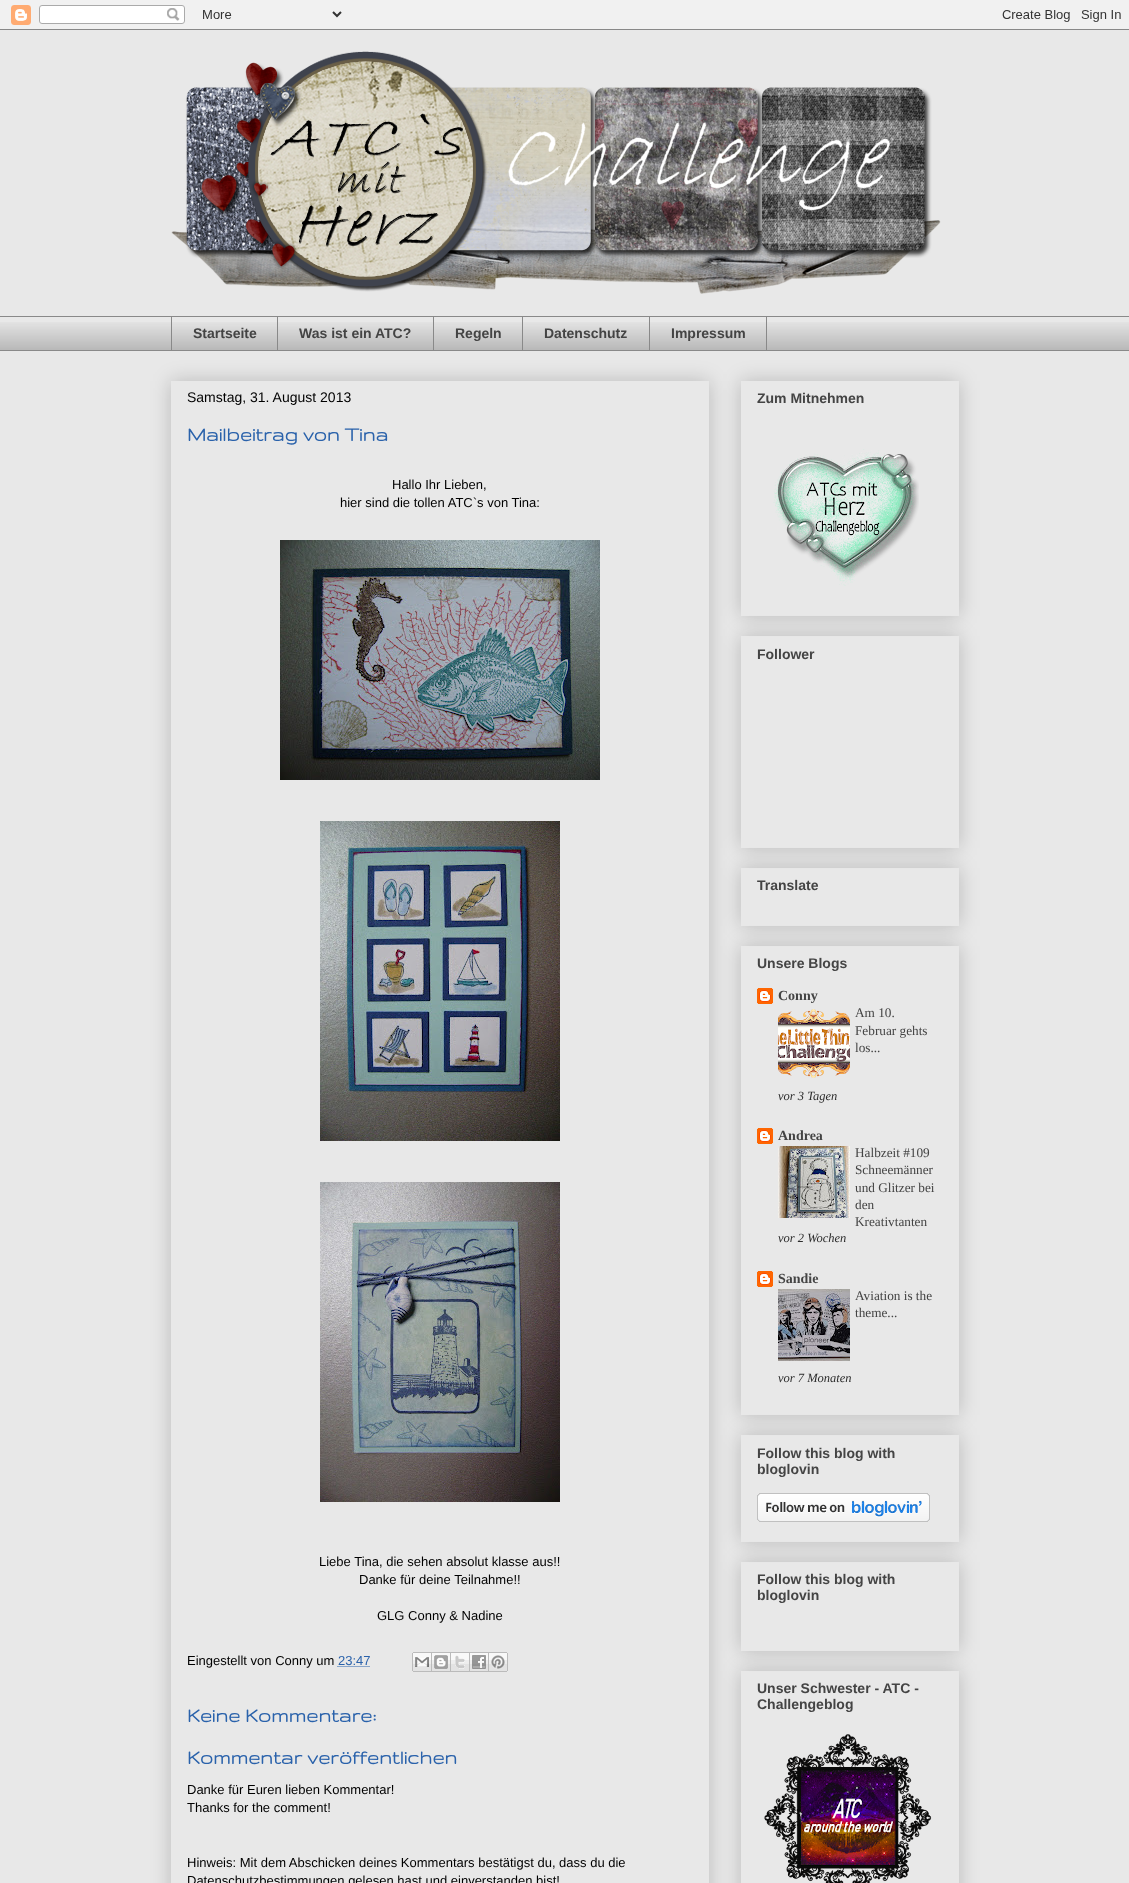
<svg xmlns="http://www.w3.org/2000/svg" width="1129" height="1883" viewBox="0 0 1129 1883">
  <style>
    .t1 { font: bold 14px Liberation Sans; fill: #444; }
    .t2 { font: 14px Liberation Sans; fill: #000; }
    .t3 { font: bold 22px Gruppo; fill: #2a62ab; }
    .t4 { font: 13px Liberation Sans; fill: #000; }
    .t5 { font: 13px Liberation Sans; fill: #2a62ab; }
    .t6 { font: bold 14px Liberation Serif; fill: #444; }
    .t7 { font: 13.25px Liberation Serif; fill: #444; }
    .t8 { font: italic 12.5px Liberation Serif; fill: #2c2c2c; }
  </style>
  <defs>
    <clipPath id="clip1"><path d="M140 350H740V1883H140ZM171 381H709V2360H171Z" clip-rule="evenodd"/></clipPath>
    <clipPath id="clip2"><path d="M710 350H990V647H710ZM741 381H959V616H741Z" clip-rule="evenodd"/></clipPath>
    <clipPath id="clip3"><path d="M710 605H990V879H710ZM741 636H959V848H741Z" clip-rule="evenodd"/></clipPath>
    <clipPath id="clip4"><path d="M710 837H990V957H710ZM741 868H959V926H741Z" clip-rule="evenodd"/></clipPath>
    <clipPath id="clip5"><path d="M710 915H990V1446H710ZM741 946H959V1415H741Z" clip-rule="evenodd"/></clipPath>
    <clipPath id="clip6"><path d="M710 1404H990V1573H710ZM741 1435H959V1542H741Z" clip-rule="evenodd"/></clipPath>
    <clipPath id="clip7"><path d="M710 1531H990V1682H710ZM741 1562H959V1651H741Z" clip-rule="evenodd"/></clipPath>
    <clipPath id="clip8"><path d="M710 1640H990V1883H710ZM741 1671H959V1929H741Z" clip-rule="evenodd"/></clipPath>
  </defs>
  <rect width="100%" height="100%" fill="#e8e8e8"/>
  <image x="0" y="0" width="1129" height="30" href="images/1.png"/>
  <image x="171" y="51" width="770" height="243" href="images/2.png"/>
  <image x="0" y="322" width="1129" height="28" href="images/3.png"/>
  <rect x="0" y="316" width="1129" height="1" fill="#898989"/>
  <rect x="171" y="316" width="1" height="35" fill="#898989"/>
  <text x="193" y="338" class="t1">Startseite</text>
  <rect x="277" y="316" width="1" height="35" fill="#898989"/>
  <text x="299" y="338" class="t1">Was ist ein ATC?</text>
  <rect x="433" y="316" width="1" height="35" fill="#898989"/>
  <text x="455" y="338" class="t1">Regeln</text>
  <rect x="522" y="316" width="1" height="35" fill="#898989"/>
  <text x="544" y="338" class="t1">Datenschutz</text>
  <rect x="649.5" y="316.5" width="117" height="34" fill="none" stroke="#898989"/>
  <text x="671" y="338" class="t1">Impressum</text>
  <rect x="0" y="350" width="1129" height="1" fill="#898989"/>
  <g clip-path="url(#clip1)">
    <rect x="171" y="381" width="538" height="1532" fill="#00000033" filter="blur(10px)"/>
  </g>
  <text x="187" y="402" class="t2">Samstag, 31. August 2013</text>
  <text x="187" y="441" class="t3">Mailbeitrag von Tina</text>
  <text x="392" y="489" class="t4">Hallo Ihr Lieben,</text>
  <text x="340" y="507" class="t4">hier sind die tollen ATC`s von Tina:</text>
  <image x="280" y="540" width="320" height="240" href="images/4.png"/>
  <image x="320" y="821" width="240" height="320" href="images/5.png"/>
  <image x="320" y="1182" width="240" height="320" href="images/6.png"/>
  <text x="319" y="1566" class="t4">Liebe Tina, die sehen absolut klasse aus!!</text>
  <text x="359" y="1584" class="t4">Danke für deine Teilnahme!!</text>
  <text x="377" y="1620" class="t4">GLG Conny &amp; Nadine</text>
  <text x="187" y="1665" class="t4">Eingestellt von Conny um</text>
  <text x="338" y="1665" class="t5">23:47</text>
  <path d="M337.5 1666.5H370" fill="none" stroke="#2a62ab" stroke-dasharray="1 1"/>
  <image x="412" y="1652" width="20" height="20" href="images/7.png"/>
  <image x="432" y="1652" width="19" height="20" href="images/8.png"/>
  <image x="451" y="1652" width="19" height="20" href="images/9.png"/>
  <image x="470" y="1652" width="19" height="20" href="images/10.png"/>
  <image x="489" y="1652" width="19" height="20" href="images/11.png"/>
  <text x="187" y="1722" class="t3">Keine Kommentare:</text>
  <text x="187" y="1764" class="t3">Kommentar veröffentlichen</text>
  <text x="187" y="1794" class="t4">Danke für Euren lieben Kommentar!</text>
  <text x="187" y="1812" class="t4">Thanks for the comment!</text>
  <text x="187" y="1867" class="t4">Hinweis: Mit dem Abschicken deines Kommentars bestätigst du, dass du die</text>
  <text x="187" y="1885" class="t4">Datenschutzbestimmungen gelesen hast und einverstanden bist!</text>
  <g clip-path="url(#clip2)">
    <rect x="741" y="381" width="218" height="235" fill="#00000033" filter="blur(10px)"/>
  </g>
  <text x="757" y="403" class="t1">Zum Mitnehmen</text>
  <image x="773" y="449" width="146" height="137" href="images/12.png"/>
  <g clip-path="url(#clip3)">
    <rect x="741" y="636" width="218" height="212" fill="#00000033" filter="blur(10px)"/>
  </g>
  <text x="757" y="659" class="t1">Follower</text>
  <g clip-path="url(#clip4)">
    <rect x="741" y="868" width="218" height="58" fill="#00000033" filter="blur(10px)"/>
  </g>
  <text x="757" y="890" class="t1">Translate</text>
  <g clip-path="url(#clip5)">
    <rect x="741" y="946" width="218" height="469" fill="#00000033" filter="blur(10px)"/>
  </g>
  <text x="757" y="968" class="t1">Unsere Blogs</text>
  <image x="757" y="988" width="16" height="16" href="images/13.png"/>
  <text x="778" y="1000" class="t6">Conny</text>
  <image x="778" y="1009" width="72" height="69" href="images/14.png"/>
  <text x="855" y="1017" class="t7">Am 10.</text>
  <text x="855" y="1035" class="t7">Februar gehts</text>
  <text x="855" y="1052" class="t7">los...</text>
  <text x="778" y="1100" class="t8">vor 3 Tagen</text>
  <image x="757" y="1128" width="16" height="16" href="images/13.png"/>
  <text x="778" y="1140" class="t6">Andrea</text>
  <image x="778" y="1146" width="72" height="72" href="images/15.png"/>
  <text x="855" y="1157" class="t7">Halbzeit #109</text>
  <text x="855" y="1174" class="t7">Schneemänner</text>
  <text x="855" y="1192" class="t7">und Glitzer bei</text>
  <text x="855" y="1209" class="t7">den</text>
  <text x="855" y="1226" class="t7">Kreativtanten</text>
  <text x="778" y="1242" class="t8">vor 2 Wochen</text>
  <image x="757" y="1271" width="16" height="16" href="images/13.png"/>
  <text x="778" y="1283" class="t6">Sandie</text>
  <image x="778" y="1289" width="72" height="72" href="images/16.png"/>
  <text x="855" y="1300" class="t7">Aviation is the</text>
  <text x="855" y="1317" class="t7">theme...</text>
  <text x="778" y="1382" class="t8">vor 7 Monaten</text>
  <g clip-path="url(#clip6)">
    <rect x="741" y="1435" width="218" height="107" fill="#00000033" filter="blur(10px)"/>
  </g>
  <text x="757" y="1458" class="t1">Follow this blog with</text>
  <text x="757" y="1474" class="t1">bloglovin</text>
  <image x="757" y="1493" width="173" height="29" href="images/17.png"/>
  <g clip-path="url(#clip7)">
    <rect x="741" y="1562" width="218" height="89" fill="#00000033" filter="blur(10px)"/>
  </g>
  <text x="757" y="1584" class="t1">Follow this blog with</text>
  <text x="757" y="1600" class="t1">bloglovin</text>
  <g clip-path="url(#clip8)">
    <rect x="741" y="1671" width="218" height="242" fill="#00000033" filter="blur(10px)"/>
  </g>
  <text x="757" y="1693" class="t1">Unser Schwester - ATC -</text>
  <text x="757" y="1709" class="t1">Challengeblog</text>
  <image x="764" y="1734" width="168" height="149" href="images/18.png"/>
</svg>
